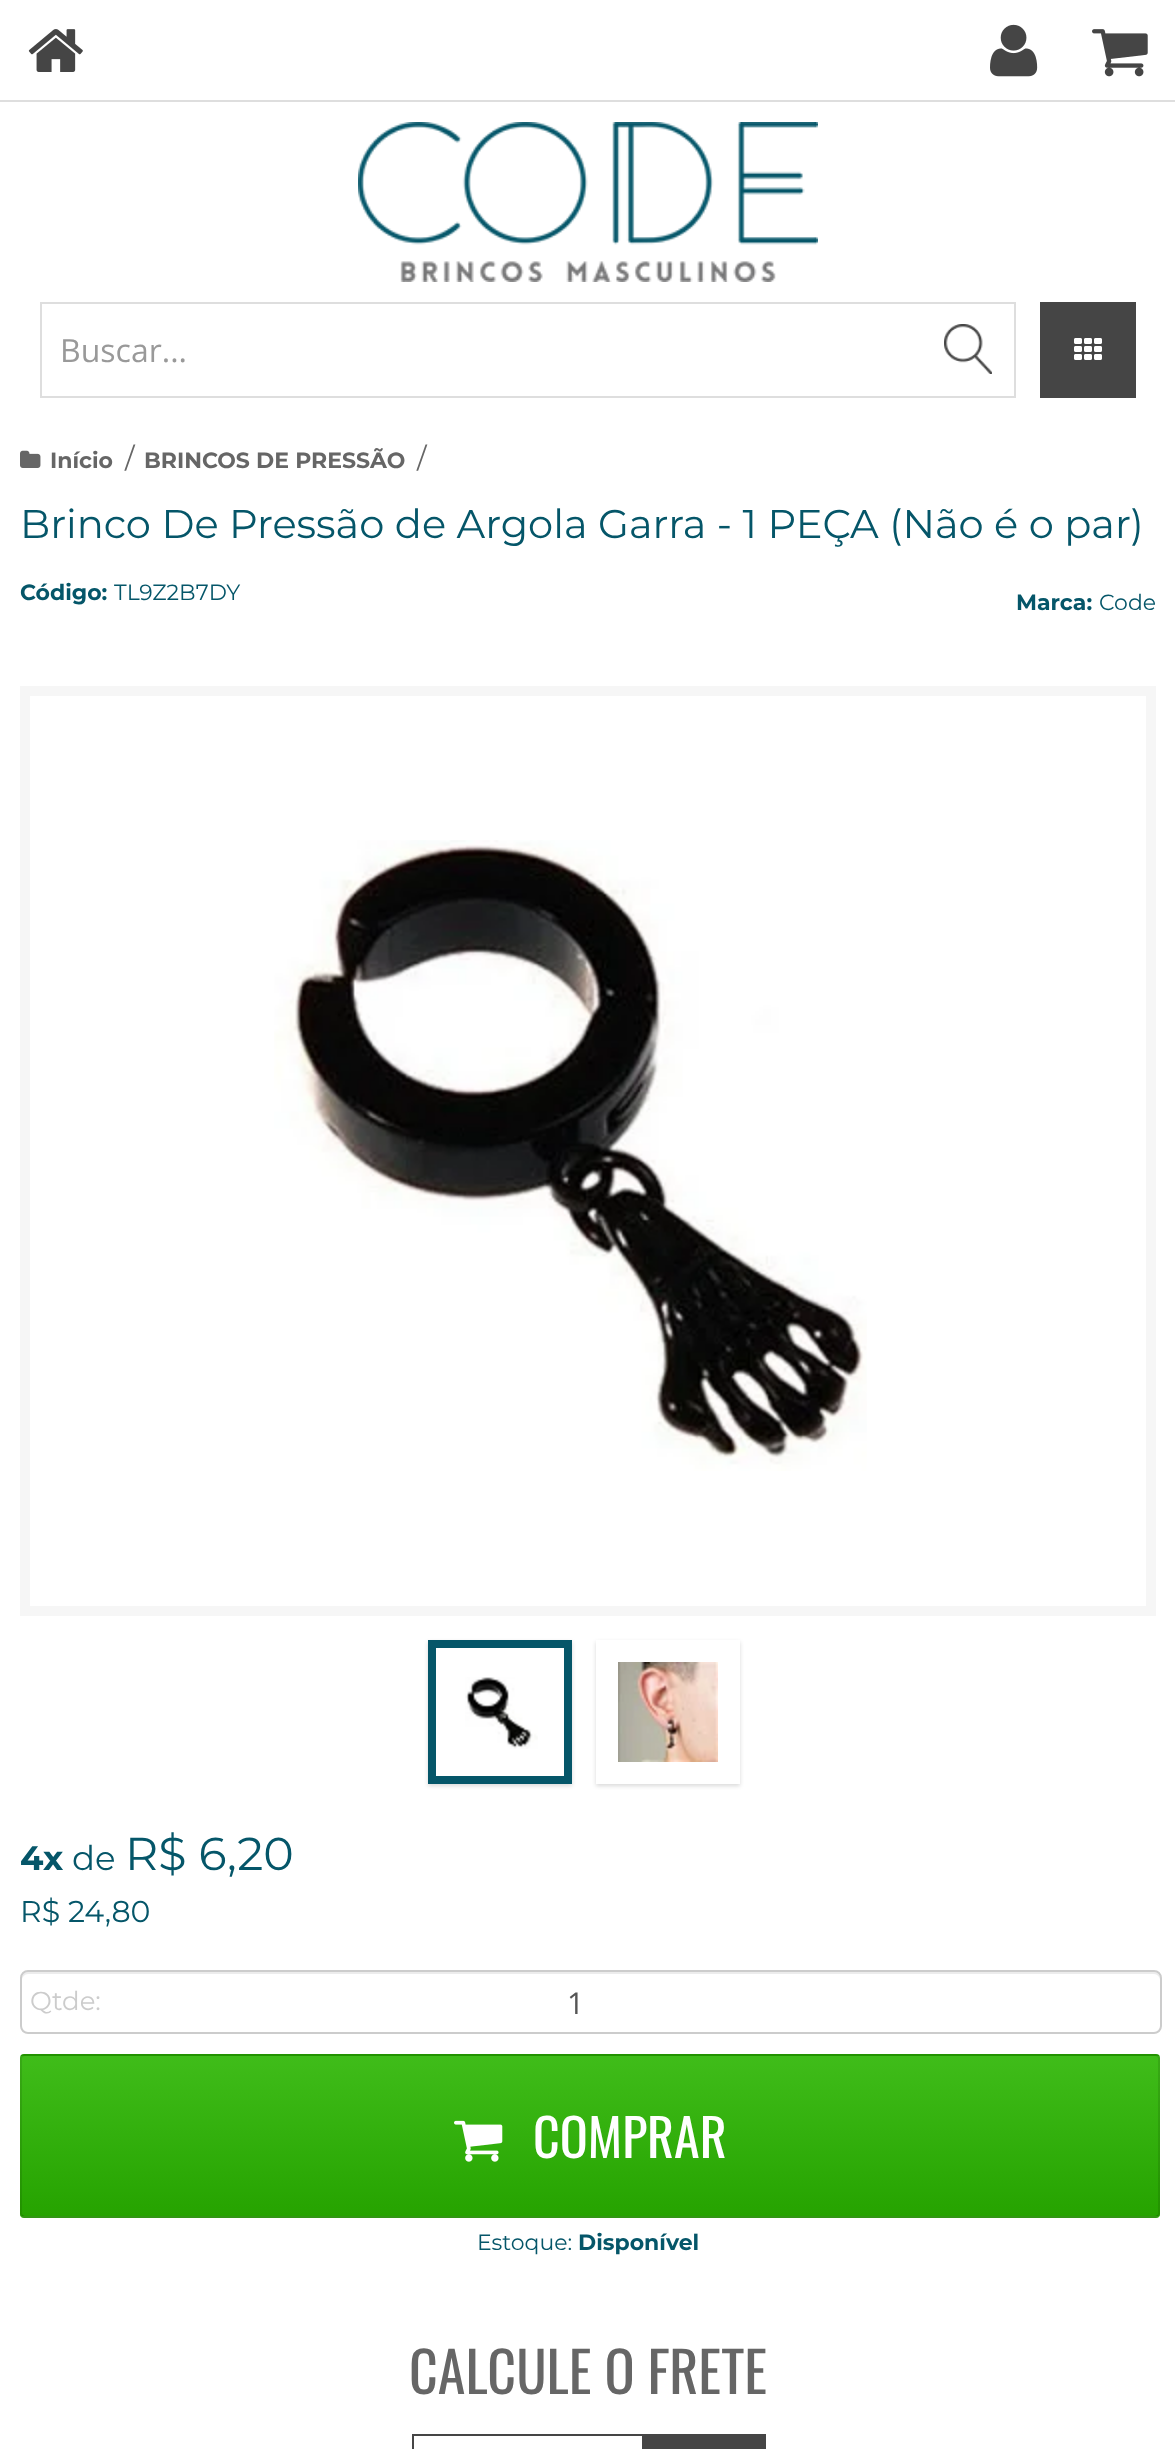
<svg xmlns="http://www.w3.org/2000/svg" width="1175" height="2449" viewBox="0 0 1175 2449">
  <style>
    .t1 { font: 32px Open Sans; fill: #999; }
    .t2 { font: bold 22px Montserrat; fill: #666; }
    .t3 { font: 28px Montserrat; fill: #666; }
    .t4 { font: 40px Montserrat; fill: #055669; }
    .t5 { font: bold 22px Montserrat; fill: #055669; }
    .t6 { font: 22px Montserrat; fill: #055669; }
    .t7 { font: bold 34px Montserrat; fill: #055669; }
    .t8 { font: 34px Montserrat; fill: #055669; }
    .t9 { font: 46px Montserrat; fill: #055669; }
    .t10 { font: 30px Montserrat; fill: #055669; }
    .t11 { font: 26px Montserrat; fill: #ccc; }
    .t12 { font: 30px Open Sans; fill: #555; }
    .t13 { font: 52px Oswald; fill: #fff; }
    .t14 { font: 56px Oswald; fill: #666; }
  </style>
  <defs>
    <clipPath id="clip1"><path d="M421 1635H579V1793H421ZM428 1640H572V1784H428Z" clip-rule="evenodd"/></clipPath>
    <clipPath id="clip2"><path d="M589 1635H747V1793H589ZM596 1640H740V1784H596Z" clip-rule="evenodd"/></clipPath>
    <clipPath id="clip3"><rect x="20" y="2054" width="1140" height="164" rx="4"/></clipPath>
    <linearGradient id="g1" gradientUnits="userSpaceOnUse" x1="590" y1="1896" x2="590" y2="2056"><stop offset="0" stop-color="#fff" stop-opacity="0.1"/><stop offset="1" stop-color="#000" stop-opacity="0.1"/></linearGradient>
    <linearGradient id="g2" gradientUnits="userSpaceOnUse" x1="590" y1="2056" x2="590" y2="2216"><stop offset="0" stop-color="#fff" stop-opacity="0.1"/><stop offset="1" stop-color="#000" stop-opacity="0.1"/></linearGradient>
    <linearGradient id="g3" gradientUnits="userSpaceOnUse" x1="590" y1="2216" x2="590" y2="2376"><stop offset="0" stop-color="#fff" stop-opacity="0.1"/><stop offset="1" stop-color="#000" stop-opacity="0.1"/></linearGradient>
  </defs>
  <rect width="100%" height="100%" fill="#fff"/>
  <rect x="0" y="100" width="1175" height="2" fill="#dedede"/>
  <image x="28" y="29" width="55" height="43" href="images/1.png"/>
  <image x="990" y="24" width="48" height="53" href="images/2.png"/>
  <image x="1092" y="29" width="56" height="48" href="images/3.png"/>
  <image x="358" y="122" width="460" height="160" href="images/4.png"/>
  <rect x="41" y="303" width="974" height="94" fill="none" stroke="#dedede" stroke-width="2"/>
  <text x="60" y="362" class="t1">Buscar...</text>
  <image x="944" y="324" width="48" height="50" href="images/5.png"/>
  <rect x="1040" y="302" width="96" height="96" fill="#454545"/>
  <image x="1074" y="338" width="28" height="22" href="images/6.png"/>
  <image x="20" y="450" width="21" height="18" href="images/7.png"/>
  <text x="50" y="468" class="t2">Início</text>
  <text x="125" y="468" class="t3">/</text>
  <text x="144" y="468" class="t2">BRINCOS DE PRESSÃO</text>
  <text x="417" y="468" class="t3">/</text>
  <text x="20" y="538" class="t4">Brinco De Pressão de Argola Garra - 1 PEÇA (Não é o par)</text>
  <text x="20" y="600" class="t5">Código:</text>
  <text x="114" y="600" class="t6">TL9Z2B7DY</text>
  <text x="1016" y="610" class="t5">Marca:</text>
  <text x="1099" y="610" class="t6">Code</text>
  <rect x="25" y="691" width="1126" height="920" fill="none" stroke="#f6f6f6" stroke-width="10"/>
  <image x="274" y="840" width="593" height="631" href="images/8.png"/>
  <g clip-path="url(#clip1)">
    <rect x="428" y="1642" width="144" height="144" fill="#00000026" filter="blur(2px)"/>
  </g>
  <rect x="432" y="1644" width="136" height="136" fill="none" stroke="#055669" stroke-width="8"/>
  <image x="465" y="1677" width="73" height="72" href="images/9.png"/>
  <g clip-path="url(#clip2)">
    <rect x="596" y="1642" width="144" height="144" fill="#00000026" filter="blur(2px)"/>
  </g>
  <image x="618" y="1662" width="100" height="100" href="images/10.png"/>
  <text x="20" y="1870" class="t7">4x</text>
  <text x="72" y="1870" class="t8">de</text>
  <text x="125" y="1870" class="t9">R$ 6,20</text>
  <text x="20" y="1922" class="t10">R$ 24,80</text>
  <path d="M28 1974H1154C1157 1974 1160 1977 1160 1980V1978C1160 1975 1157 1972 1154 1972H28C25 1972 22 1975 22 1978V1980C22 1977 25 1974 28 1974Z" fill="#ececec"/>
  <rect x="21" y="1971" width="1140" height="62" rx="7" fill="none" stroke="#ccc" stroke-width="2"/>
  <text x="30" y="2010" class="t11">Qtde:</text>
  <text x="567" y="2014" class="t12">1</text>
  <rect x="20" y="2054" width="1140" height="164" rx="4" fill="#2ab500"/>
  <g clip-path="url(#clip3)">
    <rect x="20" y="2054" width="1140" height="2" fill="url(#g1)"/>
  </g>
  <rect x="20" y="2056" width="1140" height="160" fill="url(#g2)"/>
  <g clip-path="url(#clip3)">
    <rect x="20" y="2216" width="1140" height="2" fill="url(#g3)"/>
  </g>
  <path d="M1158 2216L1156 2217H24L22 2216" fill="none" stroke="#00000033" stroke-width="2"/>
  <path d="M22 2216L21 2214V2058L22 2056L24 2055H1156L1158 2056L1159 2058V2214L1158 2216" fill="none" stroke="#0000001a" stroke-width="2"/>
  <image x="454" y="2120" width="49" height="42" href="images/11.png"/>
  <text x="533" y="2158" class="t13">COMPRAR</text>
  <text x="477" y="2250" class="t6">Estoque:</text>
  <text x="578" y="2250" class="t5">Disponível</text>
  <text x="409" y="2394" class="t14">CALCULE O FRETE</text>
  <rect x="413" y="2435" width="230" height="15" fill="none" stroke="#454545" stroke-width="2"/>
  <rect x="644" y="2434" width="122" height="15" fill="#454545"/>
</svg>
